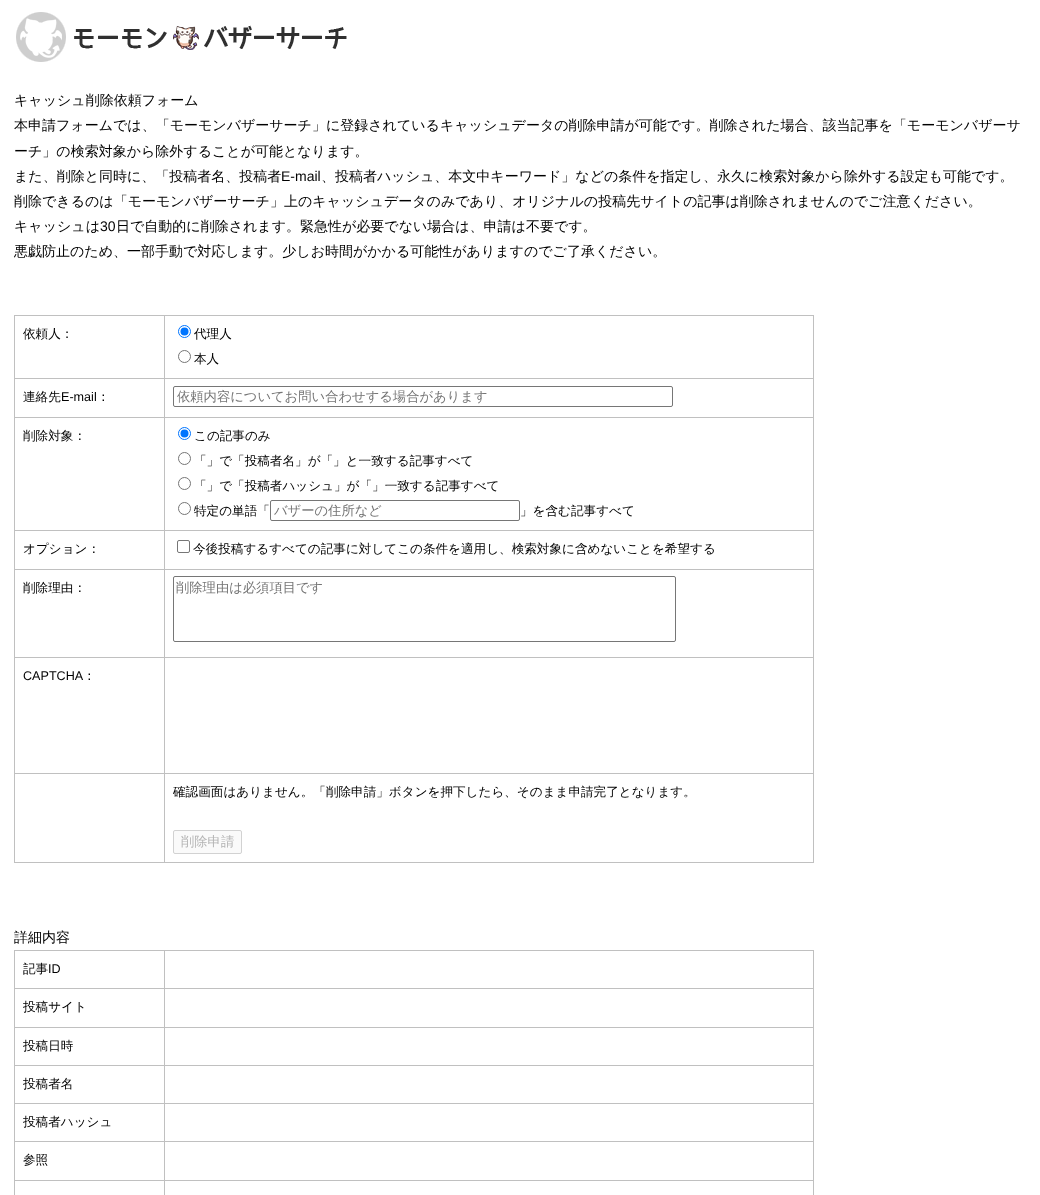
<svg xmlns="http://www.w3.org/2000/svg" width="1040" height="1195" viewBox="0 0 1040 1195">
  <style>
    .t1 { font: 500 14px WenQuanYi Zen Hei; fill: #000; }
    .t2 { font: 14px Liberation Sans; fill: #000; }
    .t3 { font: 500 12.6px WenQuanYi Zen Hei; fill: #000; }
    .t4 { font: 12.6px Liberation Sans; fill: #000; }
    .t5 { font: 500 13.3px WenQuanYi Zen Hei; fill: #757575; }
    .t6 { font: 500 13.3px WenQuanYi Zen Hei; fill: #b4b4b4; }
  </style>
  <rect width="100%" height="100%" fill="#fff"/>
  <image x="16" y="12" width="331" height="50" href="images/1.png"/>
  <text x="14" y="105" class="t1">キャッシュ削除依頼フォーム</text>
  <text x="14" y="130" class="t1">本申請フォームでは、「モーモンバザーサーチ」に登録されているキャッシュデータの削除申請が可能です。削除された場合、該当記事を「モーモンバザーサ</text>
  <text x="14" y="156" class="t1">ーチ」の検索対象から除外することが可能となります。</text>
  <text x="14" y="181" class="t1">また、削除と同時に、「投稿者名、投稿者</text>
  <text x="281" y="181" class="t2">E-mail</text>
  <text x="321" y="181" class="t1">、投稿者ハッシュ、本文中キーワード」などの条件を指定し、永久に検索対象から除外する設定も可能です。</text>
  <text x="14" y="206" class="t1">削除できるのは「モーモンバザーサーチ」上のキャッシュデータのみであり、オリジナルの投稿先サイトの記事は削除されませんのでご注意ください。</text>
  <text x="14" y="231" class="t1">キャッシュは</text>
  <text x="100" y="231" class="t2">30</text>
  <text x="116" y="231" class="t1">日で自動的に削除されます。緊急性が必要でない場合は、申請は不要です。</text>
  <text x="14" y="256" class="t1">悪戯防止のため、一部手動で対応します。少しお時間がかかる可能性がありますのでご了承ください。</text>
  <rect x="14" y="315" width="800" height="1" fill="#c0c0c0"/>
  <rect x="813" y="315" width="1" height="548" fill="#c0c0c0"/>
  <rect x="14" y="862" width="800" height="1" fill="#c0c0c0"/>
  <rect x="14" y="315" width="1" height="548" fill="#c0c0c0"/>
  <text x="23" y="338" class="t3">依頼人：</text>
  <rect x="164" y="378" width="650" height="1" fill="#c0c0c0"/>
  <rect x="164" y="417" width="650" height="1" fill="#c0c0c0"/>
  <rect x="164" y="530" width="650" height="1" fill="#c0c0c0"/>
  <rect x="164" y="569" width="650" height="1" fill="#c0c0c0"/>
  <rect x="164" y="657" width="650" height="1" fill="#c0c0c0"/>
  <rect x="164" y="773" width="650" height="1" fill="#c0c0c0"/>
  <rect x="164" y="773" width="1" height="90" fill="#c0c0c0"/>
  <rect x="14" y="773" width="151" height="1" fill="#c0c0c0"/>
  <rect x="164" y="657" width="1" height="117" fill="#c0c0c0"/>
  <rect x="14" y="657" width="151" height="1" fill="#c0c0c0"/>
  <rect x="164" y="569" width="1" height="89" fill="#c0c0c0"/>
  <rect x="14" y="569" width="151" height="1" fill="#c0c0c0"/>
  <rect x="164" y="530" width="1" height="40" fill="#c0c0c0"/>
  <rect x="14" y="530" width="151" height="1" fill="#c0c0c0"/>
  <rect x="164" y="417" width="1" height="114" fill="#c0c0c0"/>
  <rect x="14" y="417" width="151" height="1" fill="#c0c0c0"/>
  <rect x="164" y="378" width="1" height="40" fill="#c0c0c0"/>
  <rect x="14" y="378" width="151" height="1" fill="#c0c0c0"/>
  <rect x="164" y="315" width="1" height="64" fill="#c0c0c0"/>
  <circle cx="184.5" cy="331.5" r="6" fill="none" stroke="#0075ff"/>
  <circle cx="184.5" cy="331.5" r="4" fill="#0075ff"/>
  <text x="194" y="338" class="t3">代理人</text>
  <circle cx="184.5" cy="356.5" r="6" fill="none" stroke="#767676"/>
  <text x="194" y="363" class="t3">本人</text>
  <text x="23" y="401" class="t3">連絡先</text>
  <text x="61" y="401" class="t4">E-mail</text>
  <text x="97" y="401" class="t3">：</text>
  <rect x="173.5" y="386.5" width="499" height="20" rx="1.5" fill="none" stroke="#767676"/>
  <text x="177" y="401" class="t5">依頼内容についてお問い合わせする場合があります</text>
  <text x="23" y="440" class="t3">削除対象：</text>
  <circle cx="184.5" cy="433.5" r="6" fill="none" stroke="#0075ff"/>
  <circle cx="184.5" cy="433.5" r="4" fill="#0075ff"/>
  <text x="194" y="440" class="t3">この記事のみ</text>
  <circle cx="184.5" cy="458.5" r="6" fill="none" stroke="#767676"/>
  <text x="194" y="465" class="t3">「」で「投稿者名」が「」と一致する記事すべて</text>
  <circle cx="184.5" cy="483.5" r="6" fill="none" stroke="#767676"/>
  <text x="194" y="490" class="t3">「」で「投稿者ハッシュ」が「」一致する記事すべて</text>
  <circle cx="184.5" cy="508.5" r="6" fill="none" stroke="#767676"/>
  <text x="194" y="515" class="t3">特定の単語「</text>
  <rect x="270.5" y="500.5" width="249" height="20" rx="1.5" fill="none" stroke="#767676"/>
  <text x="274" y="515" class="t5">バザーの住所など</text>
  <text x="520" y="515" class="t3">」を含む記事すべて</text>
  <text x="23" y="553" class="t3">オプション：</text>
  <rect x="177.5" y="540.5" width="12" height="12" rx="1.5" fill="none" stroke="#767676"/>
  <text x="193" y="553" class="t3">今後投稿するすべての記事に対してこの条件を適用し、検索対象に含めないことを希望する</text>
  <text x="23" y="592" class="t3">削除理由：</text>
  <rect x="173.5" y="576.5" width="502" height="65" rx="1.5" fill="none" stroke="#767676"/>
  <text x="176" y="592" class="t5">削除理由は必須項目です</text>
  <text x="23" y="680" class="t4">CAPTCHA</text>
  <text x="83" y="680" class="t3">：</text>
  <text x="173" y="796" class="t3">確認画面はありません。「削除申請」ボタンを押下したら、そのまま申請完了となります。</text>
  <rect x="173.5" y="830.5" width="68" height="23" rx="1.5" fill="#fafafa" stroke="#d2d2d2"/>
  <text x="181" y="846" class="t6">削除申請</text>
  <text x="14" y="942" class="t1">詳細内容</text>
  <rect x="14" y="950" width="800" height="1" fill="#c0c0c0"/>
  <rect x="813" y="950" width="1" height="245" fill="#c0c0c0"/>
  <rect x="14" y="950" width="1" height="245" fill="#c0c0c0"/>
  <text x="23" y="973" class="t3">記事</text>
  <text x="48" y="973" class="t4">ID</text>
  <rect x="164" y="988" width="650" height="1" fill="#c0c0c0"/>
  <rect x="164" y="1027" width="650" height="1" fill="#c0c0c0"/>
  <rect x="164" y="1065" width="650" height="1" fill="#c0c0c0"/>
  <rect x="164" y="1103" width="650" height="1" fill="#c0c0c0"/>
  <rect x="164" y="1141" width="650" height="1" fill="#c0c0c0"/>
  <rect x="164" y="1180" width="650" height="1" fill="#c0c0c0"/>
  <rect x="164" y="1180" width="1" height="15" fill="#c0c0c0"/>
  <rect x="14" y="1180" width="151" height="1" fill="#c0c0c0"/>
  <rect x="164" y="1141" width="1" height="40" fill="#c0c0c0"/>
  <rect x="14" y="1141" width="151" height="1" fill="#c0c0c0"/>
  <rect x="164" y="1103" width="1" height="39" fill="#c0c0c0"/>
  <rect x="14" y="1103" width="151" height="1" fill="#c0c0c0"/>
  <rect x="164" y="1065" width="1" height="39" fill="#c0c0c0"/>
  <rect x="14" y="1065" width="151" height="1" fill="#c0c0c0"/>
  <rect x="164" y="1027" width="1" height="39" fill="#c0c0c0"/>
  <rect x="14" y="1027" width="151" height="1" fill="#c0c0c0"/>
  <rect x="164" y="988" width="1" height="40" fill="#c0c0c0"/>
  <rect x="14" y="988" width="151" height="1" fill="#c0c0c0"/>
  <rect x="164" y="950" width="1" height="39" fill="#c0c0c0"/>
  <text x="23" y="1011" class="t3">投稿サイト</text>
  <text x="23" y="1050" class="t3">投稿日時</text>
  <text x="23" y="1088" class="t3">投稿者名</text>
  <text x="23" y="1126" class="t3">投稿者ハッシュ</text>
  <text x="23" y="1164" class="t3">参照</text>
</svg>
